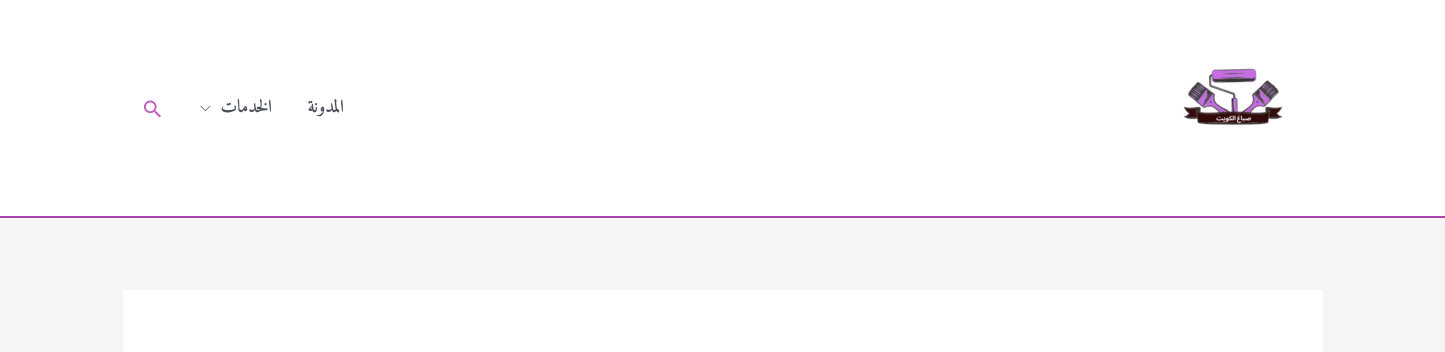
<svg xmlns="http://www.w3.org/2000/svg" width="1445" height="352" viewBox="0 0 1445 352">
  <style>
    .t1 { font: bold 18px Amiri; direction: rtl; fill: #4b4f58; }
  </style>
  <rect width="100%" height="100%" fill="#f5f5f5"/>
  <rect x="0" y="0" width="1445" height="216" fill="#fff"/>
  <rect x="0" y="216" width="1445" height="2" fill="#ac45aa"/>
  <image x="1183" y="68" width="100" height="57" href="images/1.png"/>
  <text x="344" y="112" class="t1">المدونة</text>
  <text x="272" y="112" class="t1">الخدمات</text>
  <image x="200" y="105" width="11" height="7" href="images/2.png"/>
  <image x="143" y="100" width="18" height="18" href="images/3.png"/>
  <rect x="123" y="290" width="1200" height="62" fill="#fff"/>
</svg>
